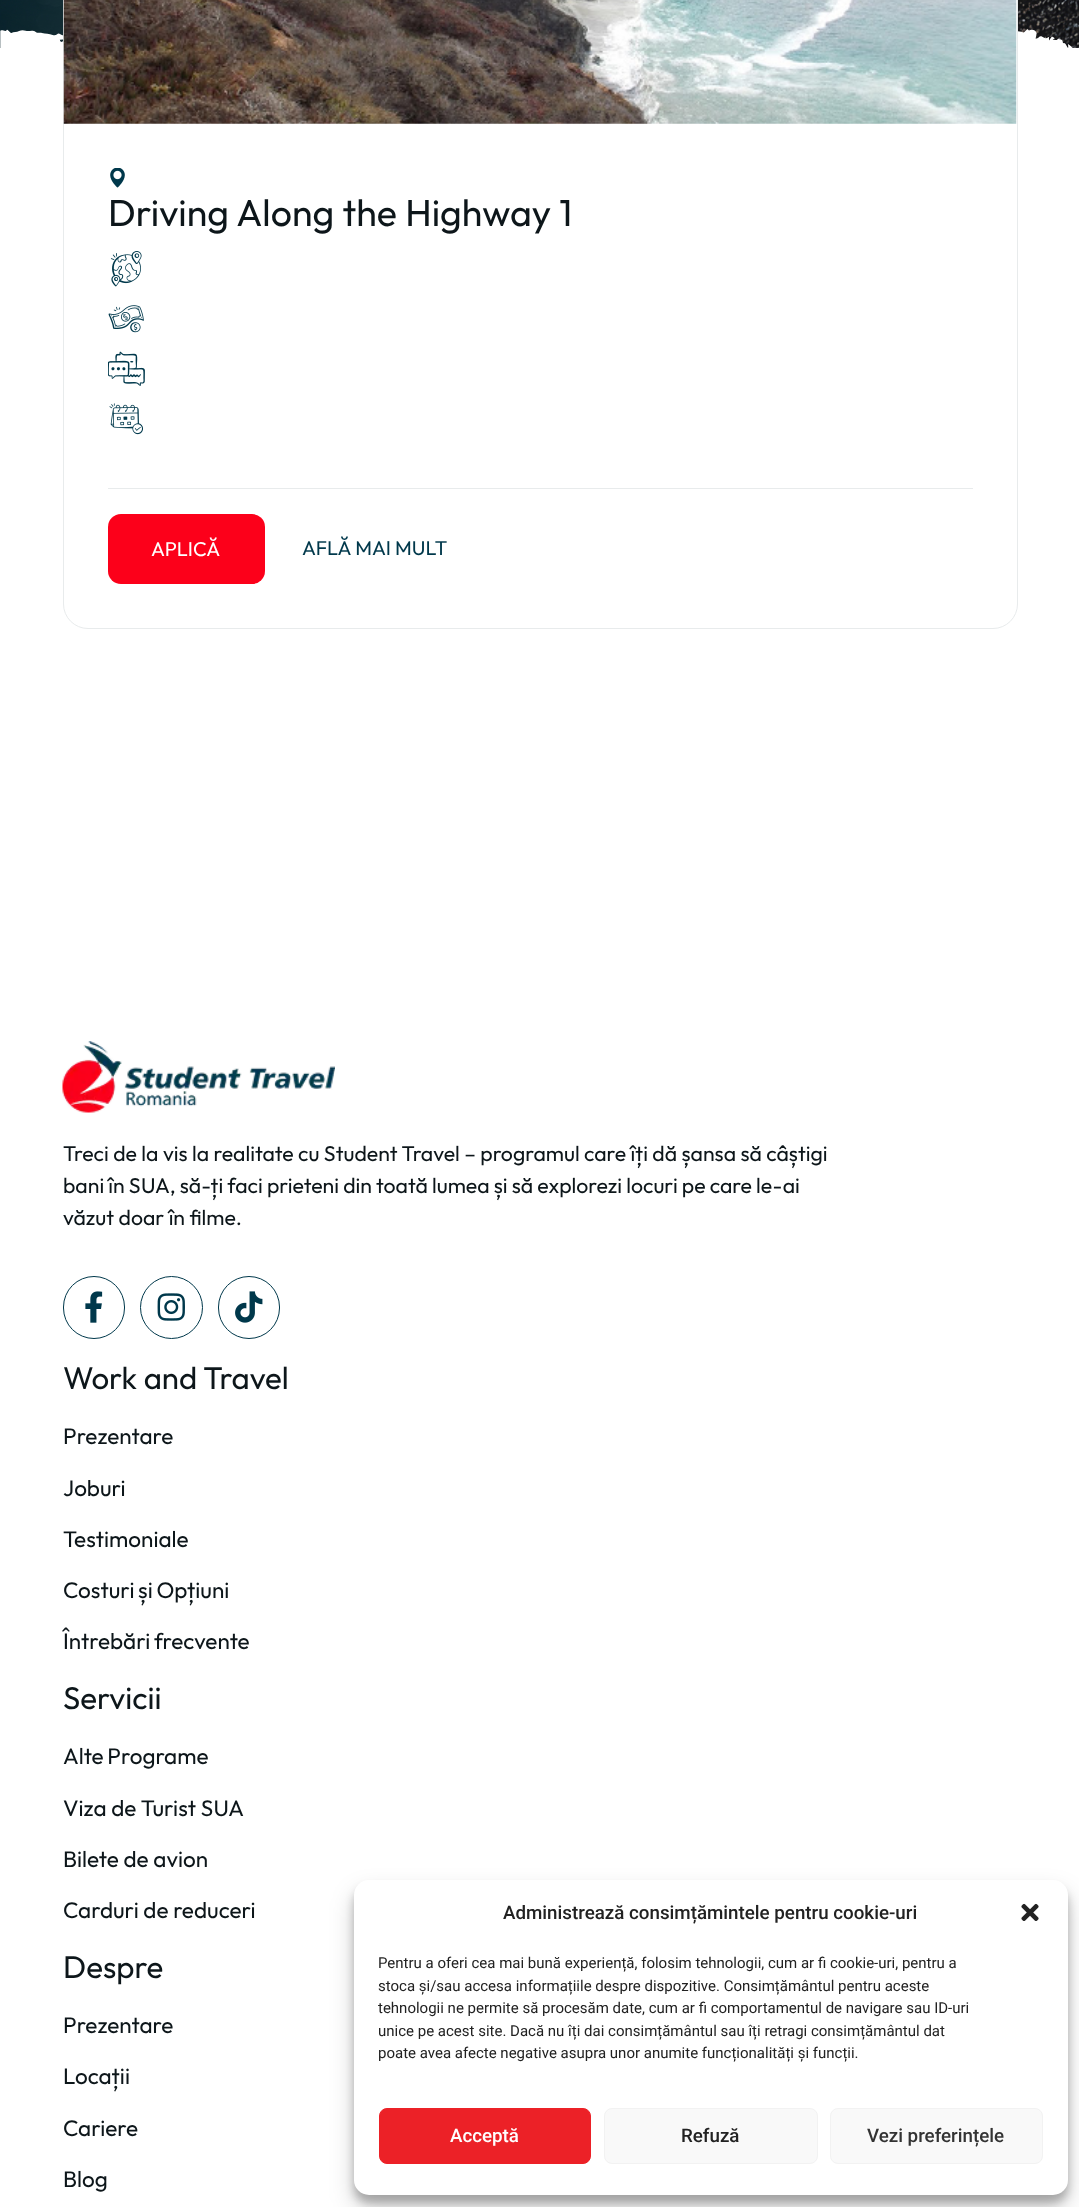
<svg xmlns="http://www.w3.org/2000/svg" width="1079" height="2207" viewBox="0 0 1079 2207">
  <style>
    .t1 { font: 37.5px Outfit; fill: #0d161a; }
    .t2 { font: 20px Outfit; fill: #fff; }
    .t3 { font: 20px Outfit; fill: #00384b; }
    .t4 { font: 21.25px Outfit; fill: #0d161a; }
    .t5 { font: 31.25px Outfit; fill: #0d161a; }
    .t6 { font: 22.5px Outfit; fill: #0d161a; }
    .t7 { font: 500 18.75px Roboto; fill: #222; }
    .t8 { font: 15px Roboto; fill: #222; }
    .t9 { font: 500 18.75px Roboto; fill: #fff; }
    .t10 { font: 500 18.75px Roboto; fill: #333; }
  </style>
  <rect width="100%" height="100%" fill="#fff"/>
  <image x="0" y="0" width="1079" height="48" href="images/1.png"/>
  <image x="0" y="29" width="1073" height="19" href="images/2.png"/>
  <rect x="63.5" y="-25.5" width="954" height="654" rx="24.5" fill="#fff" stroke="#e8ebec"/>
  <image x="63" y="0" width="954" height="124" href="images/3.png"/>
  <image x="110" y="168" width="15" height="20" href="images/4.png"/>
  <text x="108" y="226" word-spacing="0.5" class="t1">Driving Along the Highway 1</text>
  <image x="110" y="251" width="32" height="36" href="images/5.png"/>
  <image x="108" y="305" width="36" height="28" href="images/6.png"/>
  <image x="108" y="351" width="37" height="35" href="images/7.png"/>
  <image x="109" y="403" width="34" height="32" href="images/8.png"/>
  <rect x="108" y="488" width="865" height="1" fill="#e8ebec"/>
  <rect x="108" y="514" width="157" height="70" rx="13" fill="#fc001a"/>
  <text x="151" y="556" class="t2">APLICĂ</text>
  <text x="302" y="555" class="t3">AFLĂ MAI MULT</text>
  <image x="62" y="1041" width="273" height="72" href="images/9.png"/>
  <text x="63" y="1161" class="t4">Treci de la vis la realitate cu Student Travel – programul care îți dă șansa să câștigi</text>
  <text x="63" y="1193" word-spacing="-0.25" class="t4">bani în SUA, să-ți faci prieteni din toată lumea și să explorezi locuri pe care le-ai</text>
  <text x="63" y="1225" class="t4">văzut doar în filme.</text>
  <rect x="63.5" y="1276.5" width="61" height="62" rx="30.5" fill="none" stroke="#00384b"/>
  <image x="85" y="1291" width="18" height="32" href="images/10.png"/>
  <circle cx="171.5" cy="1307.5" r="31" fill="none" stroke="#00384b"/>
  <image x="157" y="1293" width="28" height="28" href="images/11.png"/>
  <rect x="218.5" y="1276.5" width="61" height="62" rx="30.5" fill="none" stroke="#00384b"/>
  <image x="235" y="1291" width="28" height="32" href="images/12.png"/>
  <text x="63" y="1389" class="t5">Work and Travel</text>
  <text x="63" y="1444" class="t6">Prezentare</text>
  <text x="63" y="1496" class="t6">Joburi</text>
  <text x="63" y="1547" class="t6">Testimoniale</text>
  <text x="63" y="1598" word-spacing="-1" class="t6">Costuri și Opțiuni</text>
  <text x="63" y="1649" word-spacing="-1" class="t6">Întrebări frecvente</text>
  <text x="63" y="1709" class="t5">Servicii</text>
  <text x="63" y="1764" word-spacing="-1" class="t6">Alte Programe</text>
  <text x="63" y="1816" class="t6">Viza de Turist SUA</text>
  <text x="63" y="1867" class="t6">Bilete de avion</text>
  <text x="63" y="1918" class="t6">Carduri de reduceri</text>
  <text x="63" y="1978" class="t5">Despre</text>
  <text x="63" y="2033" class="t6">Prezentare</text>
  <text x="63" y="2084" class="t6">Locații</text>
  <text x="63" y="2136" class="t6">Cariere</text>
  <text x="63" y="2187" class="t6">Blog</text>
  <rect x="354" y="1888" width="714" height="315" rx="15" fill="#0000003b" filter="blur(4px)"/>
  <rect x="354" y="1893" width="714" height="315" rx="15" fill="#00000030" filter="blur(12.5px)"/>
  <rect x="354" y="1880" width="714" height="315" rx="15" fill="#fff"/>
  <text x="503" y="1919" class="t7">Administrează consimțămintele pentru cookie-uri</text>
  <image x="1021" y="1903" width="18" height="18" href="images/13.png"/>
  <text x="378" y="1968" class="t8">Pentru a oferi cea mai bună experiență, folosim tehnologii, cum ar fi cookie-uri, pentru a</text>
  <text x="378" y="1991" class="t8">stoca și/sau accesa informațiile despre dispozitive. Consimțământul pentru aceste</text>
  <text x="378" y="2013" class="t8">tehnologii ne permite să procesăm date, cum ar fi comportamentul de navigare sau ID-uri</text>
  <text x="378" y="2036" class="t8">unice pe acest site. Dacă nu îți dai consimțământul sau îți retragi consimțământul dat</text>
  <text x="378" y="2058" class="t8">poate avea afecte negative asupra unor anumite funcționalități și funcții.</text>
  <rect x="379.5" y="2108.5" width="211" height="55" rx="7.5" fill="#ec2127" stroke="#ec2127"/>
  <text x="450" y="2142" class="t9">Acceptă</text>
  <rect x="604.5" y="2108.5" width="213" height="55" rx="7.5" fill="#f9f9f9" stroke="#f2f2f2"/>
  <text x="681" y="2142" class="t7">Refuză</text>
  <rect x="830.5" y="2108.5" width="212" height="55" rx="7.5" fill="#f9f9f9" stroke="#f2f2f2"/>
  <text x="867" y="2142" class="t10">Vezi preferințele</text>
</svg>
